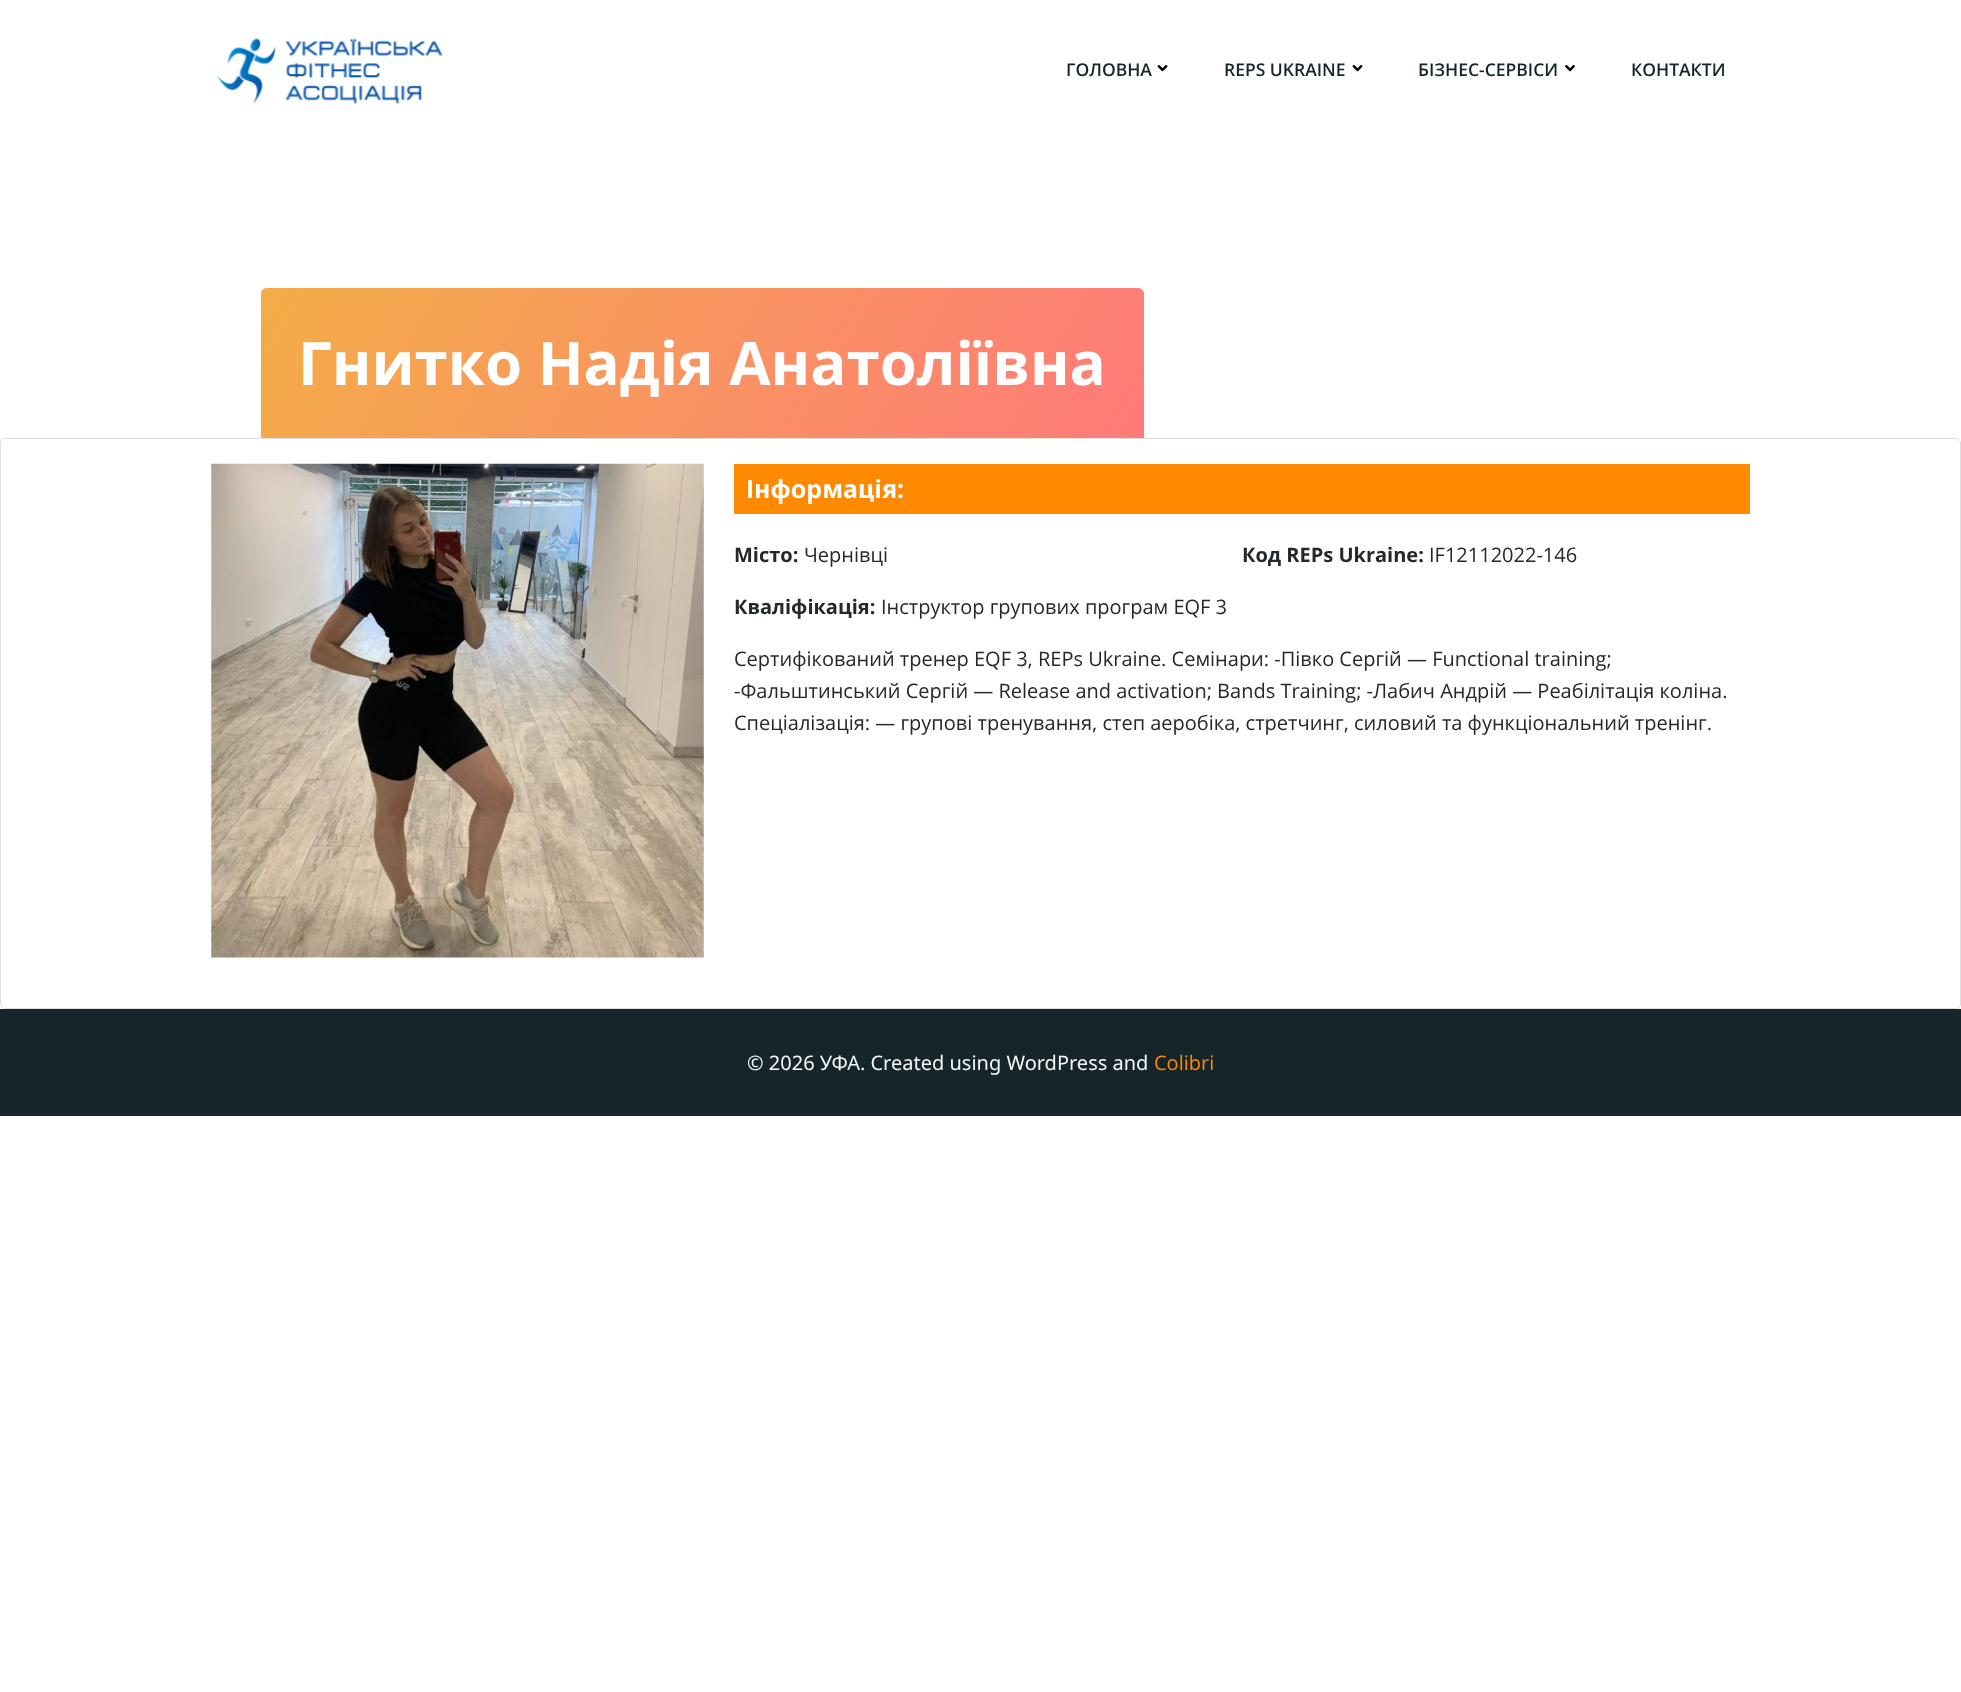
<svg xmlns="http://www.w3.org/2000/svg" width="1961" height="1692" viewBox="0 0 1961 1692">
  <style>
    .t1 { font: 600 17.5px Open Sans; fill: #16252a; }
    .t2 { font: bold 60px Open Sans; fill: #fff; }
    .t3 { font: bold 25px Noto Sans; fill: #fff; }
    .t4 { font: bold 20px Open Sans; fill: #24282a; }
    .t5 { font: 20px Open Sans; fill: #24282a; }
    .t6 { font: 20px Noto Sans; fill: #f6f7f9; }
    .t7 { font: 20px Open Sans; fill: #ff8900; }
  </style>
  <defs>
    <linearGradient id="g1" gradientUnits="userSpaceOnUse" x1="1067" y1="573" x2="338" y2="152"><stop offset="0" stop-color="#ff7a7a"/><stop offset="1" stop-color="#f3ad47"/></linearGradient>
  </defs>
  <rect width="100%" height="100%" fill="#fff"/>
  <image x="217" y="38" width="226" height="67" href="images/1.png"/>
  <text x="1066" y="76" class="t1">ГОЛОВНА</text>
  <image x="1157" y="65" width="11" height="7" href="images/2.png"/>
  <text x="1224" y="76" class="t1">REPS UKRAINE</text>
  <image x="1352" y="65" width="11" height="7" href="images/2.png"/>
  <text x="1418" y="76" class="t1">БІЗНЕС-СЕРВІСИ</text>
  <image x="1565" y="64" width="10" height="8" href="images/3.png"/>
  <text x="1631" y="76" class="t1">КОНТАКТИ</text>
  <path d="M267 288H1138C1141.5 288 1144 290.5 1144 294V438H261V294C261 290.5 263.5 288 267 288Z" fill="url(#g1)"/>
  <text x="298" y="385" class="t2">Гнитко Надія Анатоліївна</text>
  <rect x="0.5" y="438.5" width="1960" height="570" rx="4.5" fill="none" stroke="#dfdfdf"/>
  <image x="211" y="463" width="493" height="495" href="images/4.png"/>
  <rect x="734" y="464" width="1016" height="50" fill="#ff8900"/>
  <text x="746" y="498" class="t3">Інформація:</text>
  <text x="734" y="562" class="t4">Мiсто:</text>
  <text x="804" y="562" class="t5">Чернівці</text>
  <text x="1242" y="562" class="t4">Код REPs Ukraine:</text>
  <text x="1429" y="562" class="t5">IF12112022-146</text>
  <text x="734" y="614" class="t4">Кваліфікація:</text>
  <text x="881" y="614" class="t5">Інструктор групових програм EQF 3</text>
  <text x="734" y="666" class="t5">Сертифікований тренер EQF 3, REPs Ukraine. Семінари: -Півко Сергій — Functional training;</text>
  <text x="734" y="698" class="t5">-Фальштинський Сергій — Release and activation; Bands Training; -Лабич Андрій — Реабілітація коліна.</text>
  <text x="734" y="730" class="t5">Спеціалізація: — групові тренування, степ аеробіка, стретчинг, силовий та функціональний тренінг.</text>
  <rect x="0" y="1009" width="1961" height="107" fill="#16252a"/>
  <text x="747" y="1070" class="t6">© 2026 УФА. Created using WordPress and</text>
  <text x="1154" y="1070" class="t7">Colibri</text>
</svg>
